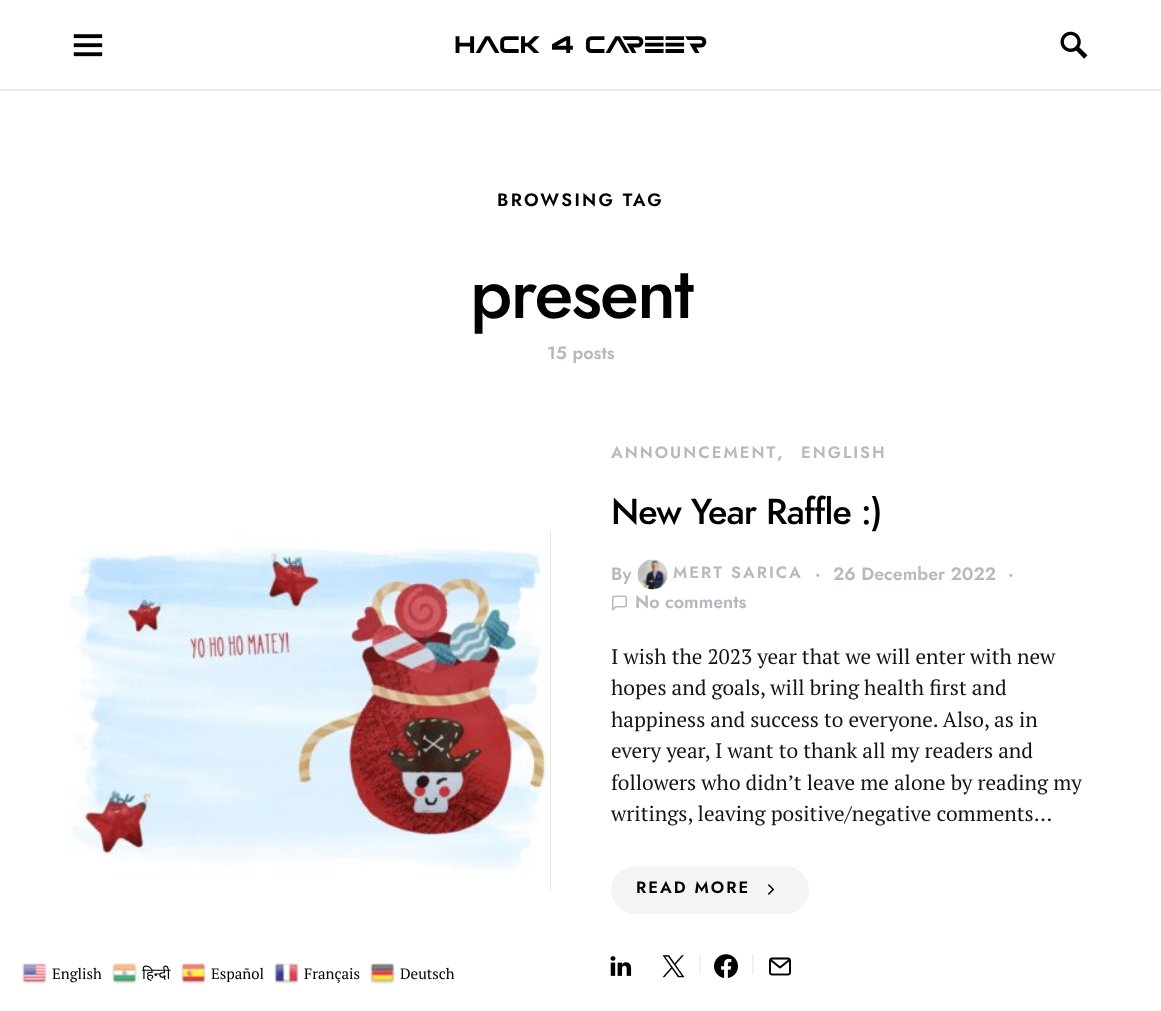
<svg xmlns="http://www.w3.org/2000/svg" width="1161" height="1011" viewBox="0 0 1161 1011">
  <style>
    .t1 { font: 15px PT Serif; fill: #000; }
    .t2 { font: 15px Noto Sans; fill: #000; }
    .t3 { font: 24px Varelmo; fill: #000; }
    .t4 { font: 600 18px Jost; letter-spacing: 2.25px; fill: #000; }
    .t5 { font: 500 72px Jost; letter-spacing: -1.75px; fill: #000; }
    .t6 { font: 600 18px Jost; fill: #b7b9c2; }
    .t7 { font: 600 16.5px Jost; letter-spacing: 2px; fill: #b7b9c2; }
    .t8 { font: 500 36px Jost; letter-spacing: -0.9px; fill: #000; }
    .t9 { font: 21px PT Serif; fill: #121416; }
    .t10 { font: 600 16.5px Jost; letter-spacing: 2px; fill: #000; }
    .t11 { font: 24px PT Serif; fill: #e9ecef; }
  </style>
  <rect width="100%" height="100%" fill="#fff"/>
  <image x="22" y="963" width="25" height="21" href="images/1.png"/>
  <text x="52" y="979" class="t1">English</text>
  <image x="112" y="963" width="25" height="21" href="images/2.png"/>
  <text x="142" y="979" class="t2">हिन्दी</text>
  <image x="181" y="963" width="25" height="21" href="images/3.png"/>
  <text x="211" y="979" class="t1">Español</text>
  <image x="274" y="963" width="25" height="21" href="images/4.png"/>
  <text x="304" y="979" class="t1">Français</text>
  <image x="370" y="963" width="25" height="21" href="images/5.png"/>
  <text x="400" y="979" class="t1">Deutsch</text>
  <rect x="0" y="89" width="1161" height="2" fill="#e9ecef"/>
  <image x="73" y="34" width="30" height="23" href="images/6.png"/>
  <text x="454" y="53" class="t3">Hack 4 Career</text>
  <image x="1060" y="31" width="28" height="28" href="images/7.png"/>
  <text x="497" y="206" class="t4">BROWSING TAG</text>
  <text x="470" y="318" class="t5">present</text>
  <text x="547" y="359" class="t6">15 posts</text>
  <rect x="550" y="531" width="1" height="360" fill="#ccc"/>
  <image x="70" y="531" width="481" height="360" href="images/8.png"/>
  <text x="611" y="458" class="t7">ANNOUNCEMENT</text>
  <text x="777" y="458" class="t6">,</text>
  <text x="801" y="458" class="t7">ENGLISH</text>
  <text x="611" y="524" class="t8">New Year Raffle :)</text>
  <text x="611" y="580" class="t6">By</text>
  <image x="637" y="559" width="31" height="31" href="images/9.png"/>
  <text x="673" y="578" class="t7">MERT SARICA</text>
  <text x="815" y="580" class="t6">·</text>
  <text x="833" y="580" class="t6">26 December 2022</text>
  <text x="1008" y="580" class="t6">·</text>
  <image x="612" y="595" width="15" height="16" href="images/10.png"/>
  <text x="635" y="608" class="t6">No comments</text>
  <text x="611" y="664" class="t9">I wish the 2023 year that we will enter with new</text>
  <text x="611" y="695" class="t9">hopes and goals, will bring health first and</text>
  <text x="611" y="727" class="t9">happiness and success to everyone. Also, as in</text>
  <text x="611" y="758" class="t9">every year, I want to thank all my readers and</text>
  <text x="611" y="790" class="t9">followers who didn’t leave me alone by reading my</text>
  <text x="611" y="821" class="t9">writings, leaving positive/negative comments…</text>
  <rect x="611" y="866" width="198" height="48" rx="24" fill="#f2f4f6"/>
  <text x="636" y="893" class="t10">READ MORE</text>
  <image x="768" y="884" width="6" height="11" href="images/11.png"/>
  <image x="610" y="956" width="22" height="20" href="images/12.png"/>
  <image x="662" y="955" width="23" height="23" href="images/13.png"/>
  <text x="697" y="971" class="t11">|</text>
  <image x="714" y="954" width="24" height="24" href="images/14.png"/>
  <text x="750" y="971" class="t11">|</text>
  <image x="769" y="957" width="22" height="19" href="images/15.png"/>
</svg>
